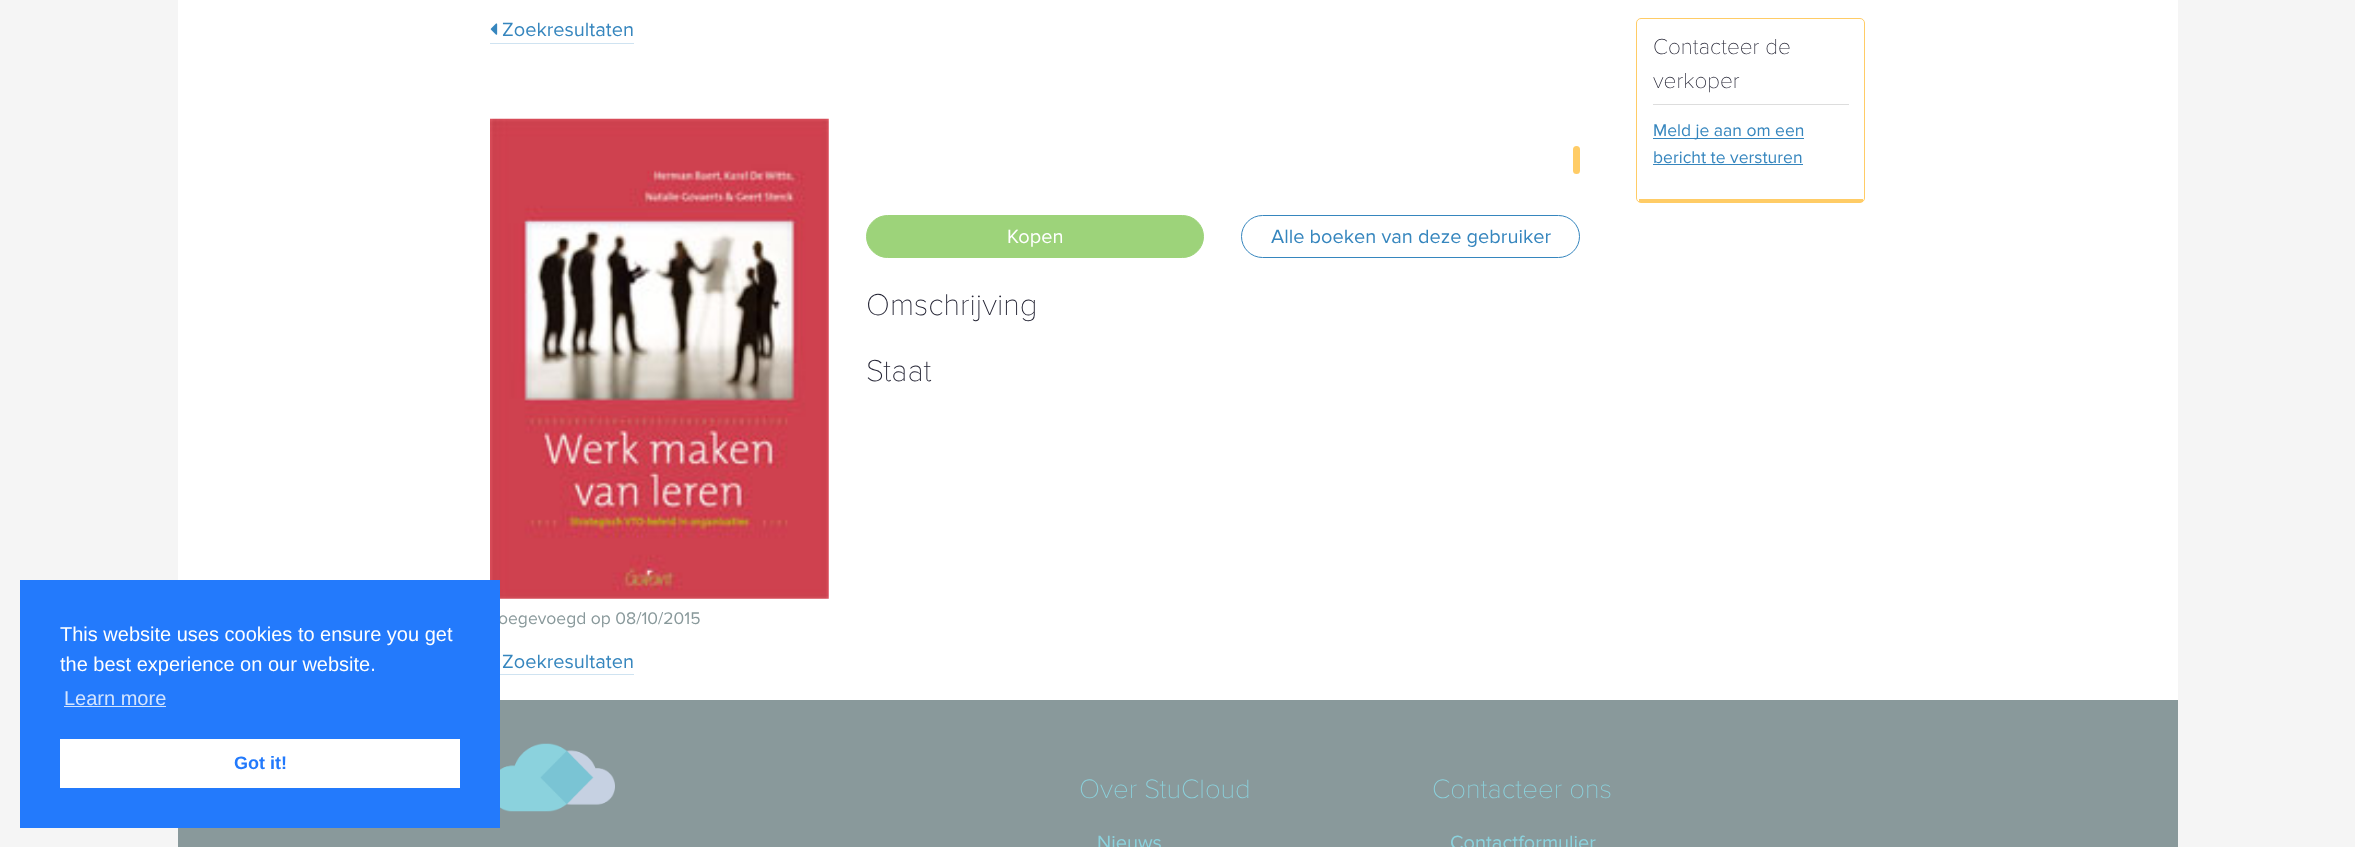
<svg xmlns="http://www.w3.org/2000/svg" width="2355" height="847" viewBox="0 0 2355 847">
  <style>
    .t1 { font: 17.5px Proxima Nova; fill: #89999b; }
    .t2 { font: 20px Liberation Sans; fill: #fff; }
    .t3 { font: 20px Liberation Sans; fill: #d3e4fe; }
    .t4 { font: bold 18px Liberation Sans; fill: #237afc; }
    .t5 { font: 20px Proxima Nova; fill: #3686be; }
    .t6 { font: 20px Proxima Nova; fill: #fff; }
    .t7 { font: 100 31.25px Proxima Nova; fill: #232333; }
    .t8 { font: 100 22.5px Proxima Nova; fill: #232333; }
    .t9 { font: 17.5px Proxima Nova; fill: #3686be; }
    .t10 { font: 100 27.5px Proxima Nova; fill: #8bd2dd; }
    .t11 { font: 20px Proxima Nova; fill: #8bd2dd; }
  </style>
  <rect width="100%" height="100%" fill="#f5f5f5"/>
  <rect x="178" y="0" width="2000" height="700" fill="#fff"/>
  <image x="490" y="118" width="339" height="481" href="images/2.png"/>
  <text x="498" y="624" class="t1">oegevoegd op 08/10/2015</text>
  <rect x="178" y="700" width="2000" height="147" fill="#89999b"/>
  <rect x="20" y="580" width="480" height="248" fill="#237afc"/>
  <text x="60" y="641" class="t2">This website uses cookies to ensure you get</text>
  <text x="60" y="671" class="t2">the best experience on our website.</text>
  <text x="64" y="705" class="t3">Learn more</text>
  <rect x="64" y="706" width="102" height="1" fill="#d3e4fe"/>
  <rect x="60" y="739" width="400" height="49" fill="#fff"/>
  <text x="234" y="769" class="t4">Got it!</text>
  <rect x="490" y="43" width="144" height="1" fill="#cfe3f1"/>
  <image x="490" y="23" width="8" height="12" href="images/1.png"/>
  <text x="502" y="36" class="t5">Zoekresultaten</text>
  <rect x="1573" y="146" width="7" height="28" rx="3.5" fill="#fc6"/>
  <rect x="866.5" y="215.5" width="337" height="42" rx="21" fill="#9dd37a" stroke="#9dd37a"/>
  <text x="1007" y="243" class="t6">Kopen</text>
  <rect x="1241.5" y="215.5" width="338" height="42" rx="21" fill="none" stroke="#3686be"/>
  <text x="1271" y="243" class="t5">Alle boeken van deze gebruiker</text>
  <text x="866" y="315" class="t7">Omschrijving</text>
  <text x="866" y="381" class="t7">Staat</text>
  <rect x="500" y="674" width="134" height="1" fill="#cfe3f1"/>
  <text x="502" y="668" class="t5">Zoekresultaten</text>
  <rect x="1636.5" y="18.5" width="228" height="184" rx="4.5" fill="none" stroke="#fc6"/>
  <rect x="1639" y="199" width="224" height="3" fill="#fc6"/>
  <rect x="1653" y="104" width="196" height="1" fill="#ddd"/>
  <text x="1653" y="54" class="t8">Contacteer de</text>
  <text x="1653" y="88" class="t8">verkoper</text>
  <rect x="1653" y="138" width="151" height="1" fill="#3686be"/>
  <text x="1653" y="136" class="t9">Meld je aan om een</text>
  <text x="1653" y="163" class="t9">bericht te versturen</text>
  <rect x="1653" y="164" width="150" height="1" fill="#3686be"/>
  <image x="500" y="743" width="115" height="69" href="images/3.png"/>
  <text x="1079" y="798" class="t10">Over StuCloud</text>
  <text x="1097" y="849" class="t11">Nieuws</text>
  <text x="1432" y="798" class="t10">Contacteer ons</text>
  <text x="1450" y="849" class="t11">Contactformulier</text>
</svg>
